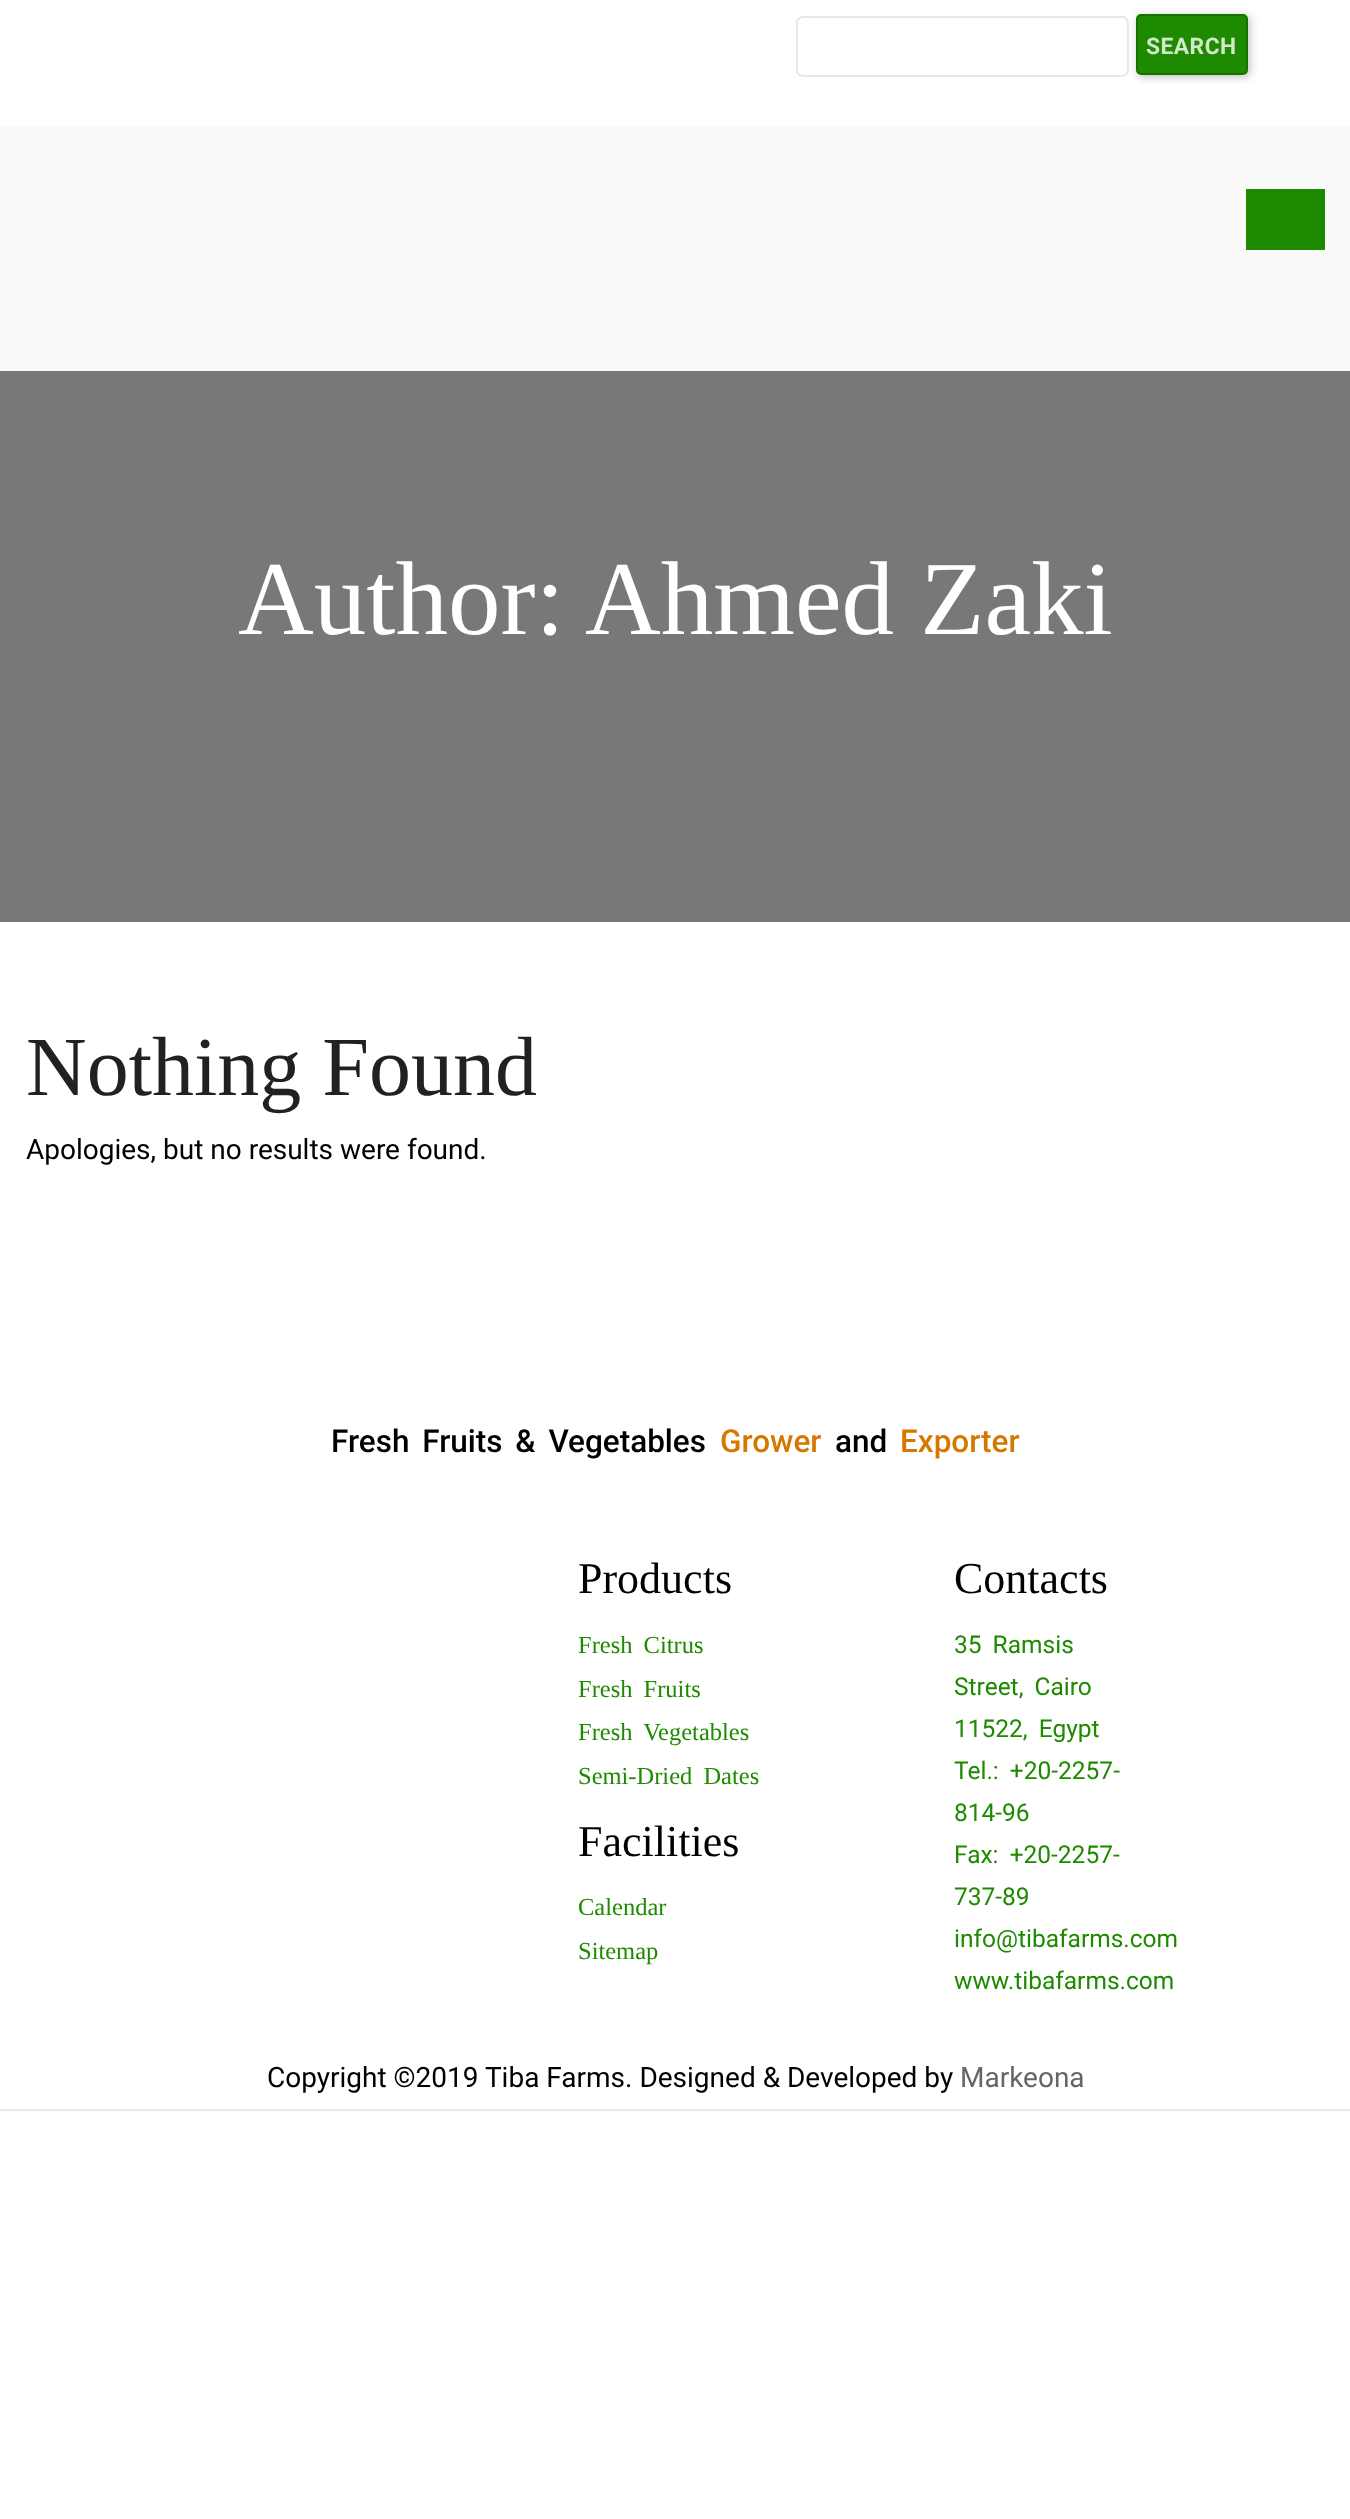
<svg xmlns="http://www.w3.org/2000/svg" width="1350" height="2519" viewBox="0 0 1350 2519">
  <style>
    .t1 { font: bold 22.75px Roboto; letter-spacing: 0.5px; fill: #d2e8cc; }
    .t2 { font: 105px Liberation Serif; fill: #fff; }
    .t3 { font: 84px Liberation Serif; fill: #212121; }
    .t4 { font: 28px Roboto; fill: #000; }
    .t5 { font: 500 31.5px Roboto; fill: #000; }
    .t6 { font: 500 31.5px Roboto; fill: #d67800; }
    .t7 { font: 44px Liberation Serif; fill: #000; }
    .t8 { font: 24.5px Liberation Serif; fill: #1e8a00; }
    .t9 { font: 24.5px Roboto; fill: #1e8a00; }
    .t10 { font: 28px Roboto; fill: #666; }
  </style>
  <rect width="100%" height="100%" fill="#fff"/>
  <rect x="797" y="17" width="331" height="59" rx="6" fill="none" stroke="#e7e7e7" stroke-width="2"/>
  <rect x="1138" y="16" width="112" height="61" rx="5" fill="#00000040" filter="blur(4.5px)"/>
  <rect x="1137" y="15" width="110" height="59" rx="4" fill="#1e8a00" stroke="#187100" stroke-width="2"/>
  <text x="1146" y="54" class="t1">SEARCH</text>
  <rect x="0" y="126" width="1350" height="245" fill="#fafafa"/>
  <rect x="1246" y="189" width="79" height="61" fill="#1e8a00"/>
  <rect x="0" y="371" width="1350" height="551" fill="#787878"/>
  <text x="238" y="634" class="t2">Author:</text>
  <text x="585" y="634" class="t2">Ahmed Zaki</text>
  <text x="26" y="1095" class="t3">Nothing Found</text>
  <text x="26" y="1159" class="t4">Apologies, but no results were found.</text>
  <text x="331" y="1452" word-spacing="5" class="t5">Fresh Fruits &amp; Vegetables</text>
  <text x="720" y="1452" class="t6">Grower</text>
  <text x="835" y="1452" class="t5">and</text>
  <text x="900" y="1452" class="t6">Exporter</text>
  <text x="578" y="1593" class="t7">Products</text>
  <text x="578" y="1653" word-spacing="5" class="t8">Fresh Citrus</text>
  <text x="578" y="1697" word-spacing="5" class="t8">Fresh Fruits</text>
  <text x="578" y="1740" word-spacing="5" class="t8">Fresh Vegetables</text>
  <text x="578" y="1784" word-spacing="5" class="t8">Semi-Dried Dates</text>
  <text x="578" y="1856" class="t7">Facilities</text>
  <text x="578" y="1915" class="t8">Calendar</text>
  <text x="578" y="1959" class="t8">Sitemap</text>
  <text x="954" y="1593" class="t7">Contacts</text>
  <text x="954" y="1653" word-spacing="5" class="t9">35 Ramsis</text>
  <text x="954" y="1695" word-spacing="5" class="t9">Street, Cairo</text>
  <text x="954" y="1737" word-spacing="5" class="t9">11522, Egypt</text>
  <text x="954" y="1779" word-spacing="5" class="t9">Tel.: +20-2257-</text>
  <text x="954" y="1821" class="t9">814-96</text>
  <text x="954" y="1863" word-spacing="5" class="t9">Fax: +20-2257-</text>
  <text x="954" y="1905" class="t9">737-89</text>
  <text x="954" y="1947" class="t9">info@tibafarms.com</text>
  <text x="954" y="1989" class="t9">www.tibafarms.com</text>
  <rect x="0" y="2109" width="1350" height="2" fill="#e9e9e9"/>
  <text x="267" y="2087" class="t4">Copyright ©2019 Tiba Farms. Designed &amp; Developed by</text>
  <text x="960" y="2087" class="t10">Markeona</text>
</svg>
